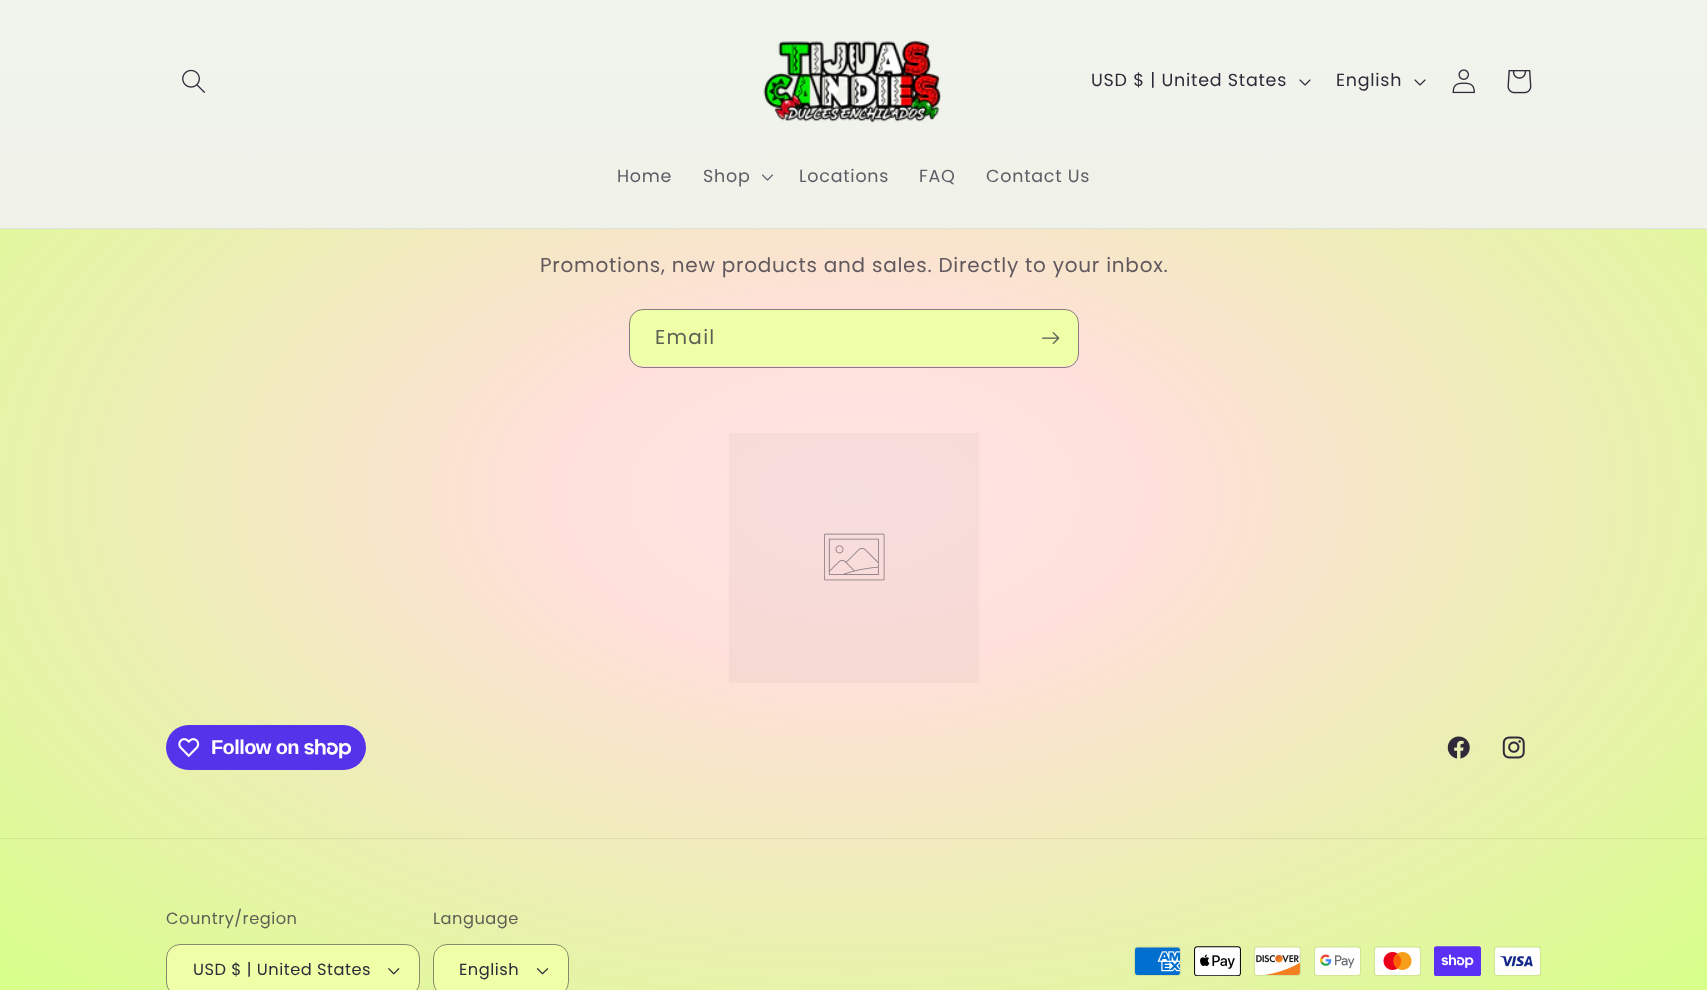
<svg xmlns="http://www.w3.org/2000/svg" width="1707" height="990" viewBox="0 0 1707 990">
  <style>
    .t1 { font: 17.5px Poppins; letter-spacing: 0.75px; fill: #2e2a39; }
    .t2 { font: 17.5px Poppins; letter-spacing: 0.75px; fill: #5f5c65; }
    .t3 { font: 20px Poppins; letter-spacing: 0.75px; fill: #61595e; }
    .t4 { font: 20px Poppins; letter-spacing: 1.25px; fill: #5e5f55; }
    .t5 { font: bold 20px Liberation Sans; letter-spacing: -0.6px; fill: #fff; }
    .t6 { font: 16.25px Poppins; letter-spacing: 0.5px; fill: #5e5f55; }
    .t7 { font: 16.25px Poppins; letter-spacing: 0.5px; fill: #2e2a39; }
  </style>
  <defs>
    <linearGradient id="g1" gradientUnits="userSpaceOnUse" x1="854" y1="0" x2="854" y2="990"><stop offset="0" stop-color="#f0f4ec"/><stop offset="1" stop-color="#f1ebe2"/></linearGradient>
    <radialGradient id="g2" gradientUnits="userSpaceOnUse" cx="0" cy="0" r="1" gradientTransform="matrix(1207 0 0 700 854 495)"><stop offset="0" stop-color="#ffe5e5"/><stop offset="0.25" stop-color="#ffe0da"/><stop offset="1" stop-color="#d7ff89"/></radialGradient>
    <radialGradient id="g3" gradientUnits="userSpaceOnUse" cx="0" cy="0" r="1" gradientTransform="matrix(1207 0 0 700 854 495)"><stop offset="0" stop-color="#eed6d7"/><stop offset="0.25" stop-color="#eed1cd"/><stop offset="1" stop-color="#c9ee83"/></radialGradient>
    <radialGradient id="g4" gradientUnits="userSpaceOnUse" cx="0" cy="0" r="1" gradientTransform="matrix(1207 0 0 700 854 495)"><stop offset="0" stop-color="#f7dede"/><stop offset="0.25" stop-color="#f7d9d4"/><stop offset="1" stop-color="#d0f686"/></radialGradient>
  </defs>
  <rect width="100%" height="100%" fill="#fff"/>
  <rect x="0" y="0" width="1707" height="228" fill="url(#g1)"/>
  <rect x="0" y="228" width="1707" height="1" fill="#e0e2dc"/>
  <image x="182" y="69" width="23" height="24" href="images/1.png"/>
  <image x="763" y="40" width="179" height="83" href="images/2.png"/>
  <text x="1091" y="86" class="t1">USD $ | United States</text>
  <image x="1299" y="79" width="12" height="7" href="images/3.png"/>
  <text x="1336" y="86" class="t1">English</text>
  <image x="1414" y="79" width="12" height="7" href="images/3.png"/>
  <image x="1452" y="69" width="23" height="25" href="images/4.png"/>
  <image x="1507" y="70" width="25" height="24" href="images/5.png"/>
  <text x="617" y="182" class="t2">Home</text>
  <text x="703" y="182" class="t2">Shop</text>
  <image x="762" y="174" width="11" height="7" href="images/6.png"/>
  <text x="799" y="182" class="t2">Locations</text>
  <text x="919" y="182" class="t2">FAQ</text>
  <text x="986" y="182" class="t2">Contact Us</text>
  <rect x="0" y="229" width="1707" height="149" fill="url(#g2)"/>
  <text x="540" y="272" class="t3">Promotions, new products and sales. Directly to your inbox.</text>
  <rect x="630" y="310" width="448" height="56" rx="13" fill="#edffa7"/>
  <rect x="629.5" y="309.5" width="449" height="58" rx="13.5" fill="none" stroke="#2e2a398c"/>
  <text x="655" y="344" class="t4">Email</text>
  <image x="1042" y="332" width="18" height="13" href="images/7.png"/>
  <rect x="0" y="378" width="1707" height="612" fill="url(#g2)"/>
  <rect x="0" y="838" width="1707" height="1" fill="url(#g3)"/>
  <rect x="729" y="433" width="250" height="250" fill="url(#g4)"/>
  <image x="824" y="533" width="61" height="48" href="images/8.png"/>
  <rect x="166" y="725" width="200" height="45" rx="22.5" fill="#5433eb"/>
  <image x="178" y="738" width="22" height="19" href="images/9.png"/>
  <text x="211" y="754" class="t5">Follow on</text>
  <image x="304" y="739" width="47" height="20" href="images/10.png"/>
  <image x="1447" y="736" width="23" height="23" href="images/11.png"/>
  <image x="1502" y="736" width="23" height="23" href="images/12.png"/>
  <text x="166" y="924" class="t6">Country/region</text>
  <rect x="166" y="944" width="254" height="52" rx="14" fill="#edffa7"/>
  <image x="388" y="968" width="12" height="7" href="images/13.png"/>
  <rect x="166.5" y="944.5" width="253" height="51" rx="13.5" fill="none" stroke="#2e2a398c"/>
  <text x="193" y="975" class="t7">USD $ | United States</text>
  <text x="433" y="924" class="t6">Language</text>
  <rect x="433" y="944" width="136" height="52" rx="14" fill="#edffa7"/>
  <image x="536" y="968" width="13" height="7" href="images/14.png"/>
  <rect x="433.5" y="944.5" width="135" height="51" rx="13.5" fill="none" stroke="#2e2a398c"/>
  <text x="459" y="975" class="t7">English</text>
  <image x="1134" y="946" width="47" height="30" href="images/15.png"/>
  <image x="1194" y="946" width="47" height="30" href="images/16.png"/>
  <image x="1254" y="946" width="47" height="30" href="images/17.png"/>
  <image x="1314" y="946" width="47" height="30" href="images/18.png"/>
  <image x="1374" y="946" width="47" height="30" href="images/19.png"/>
  <image x="1434" y="946" width="47" height="30" href="images/20.png"/>
  <image x="1494" y="946" width="47" height="30" href="images/21.png"/>
</svg>
